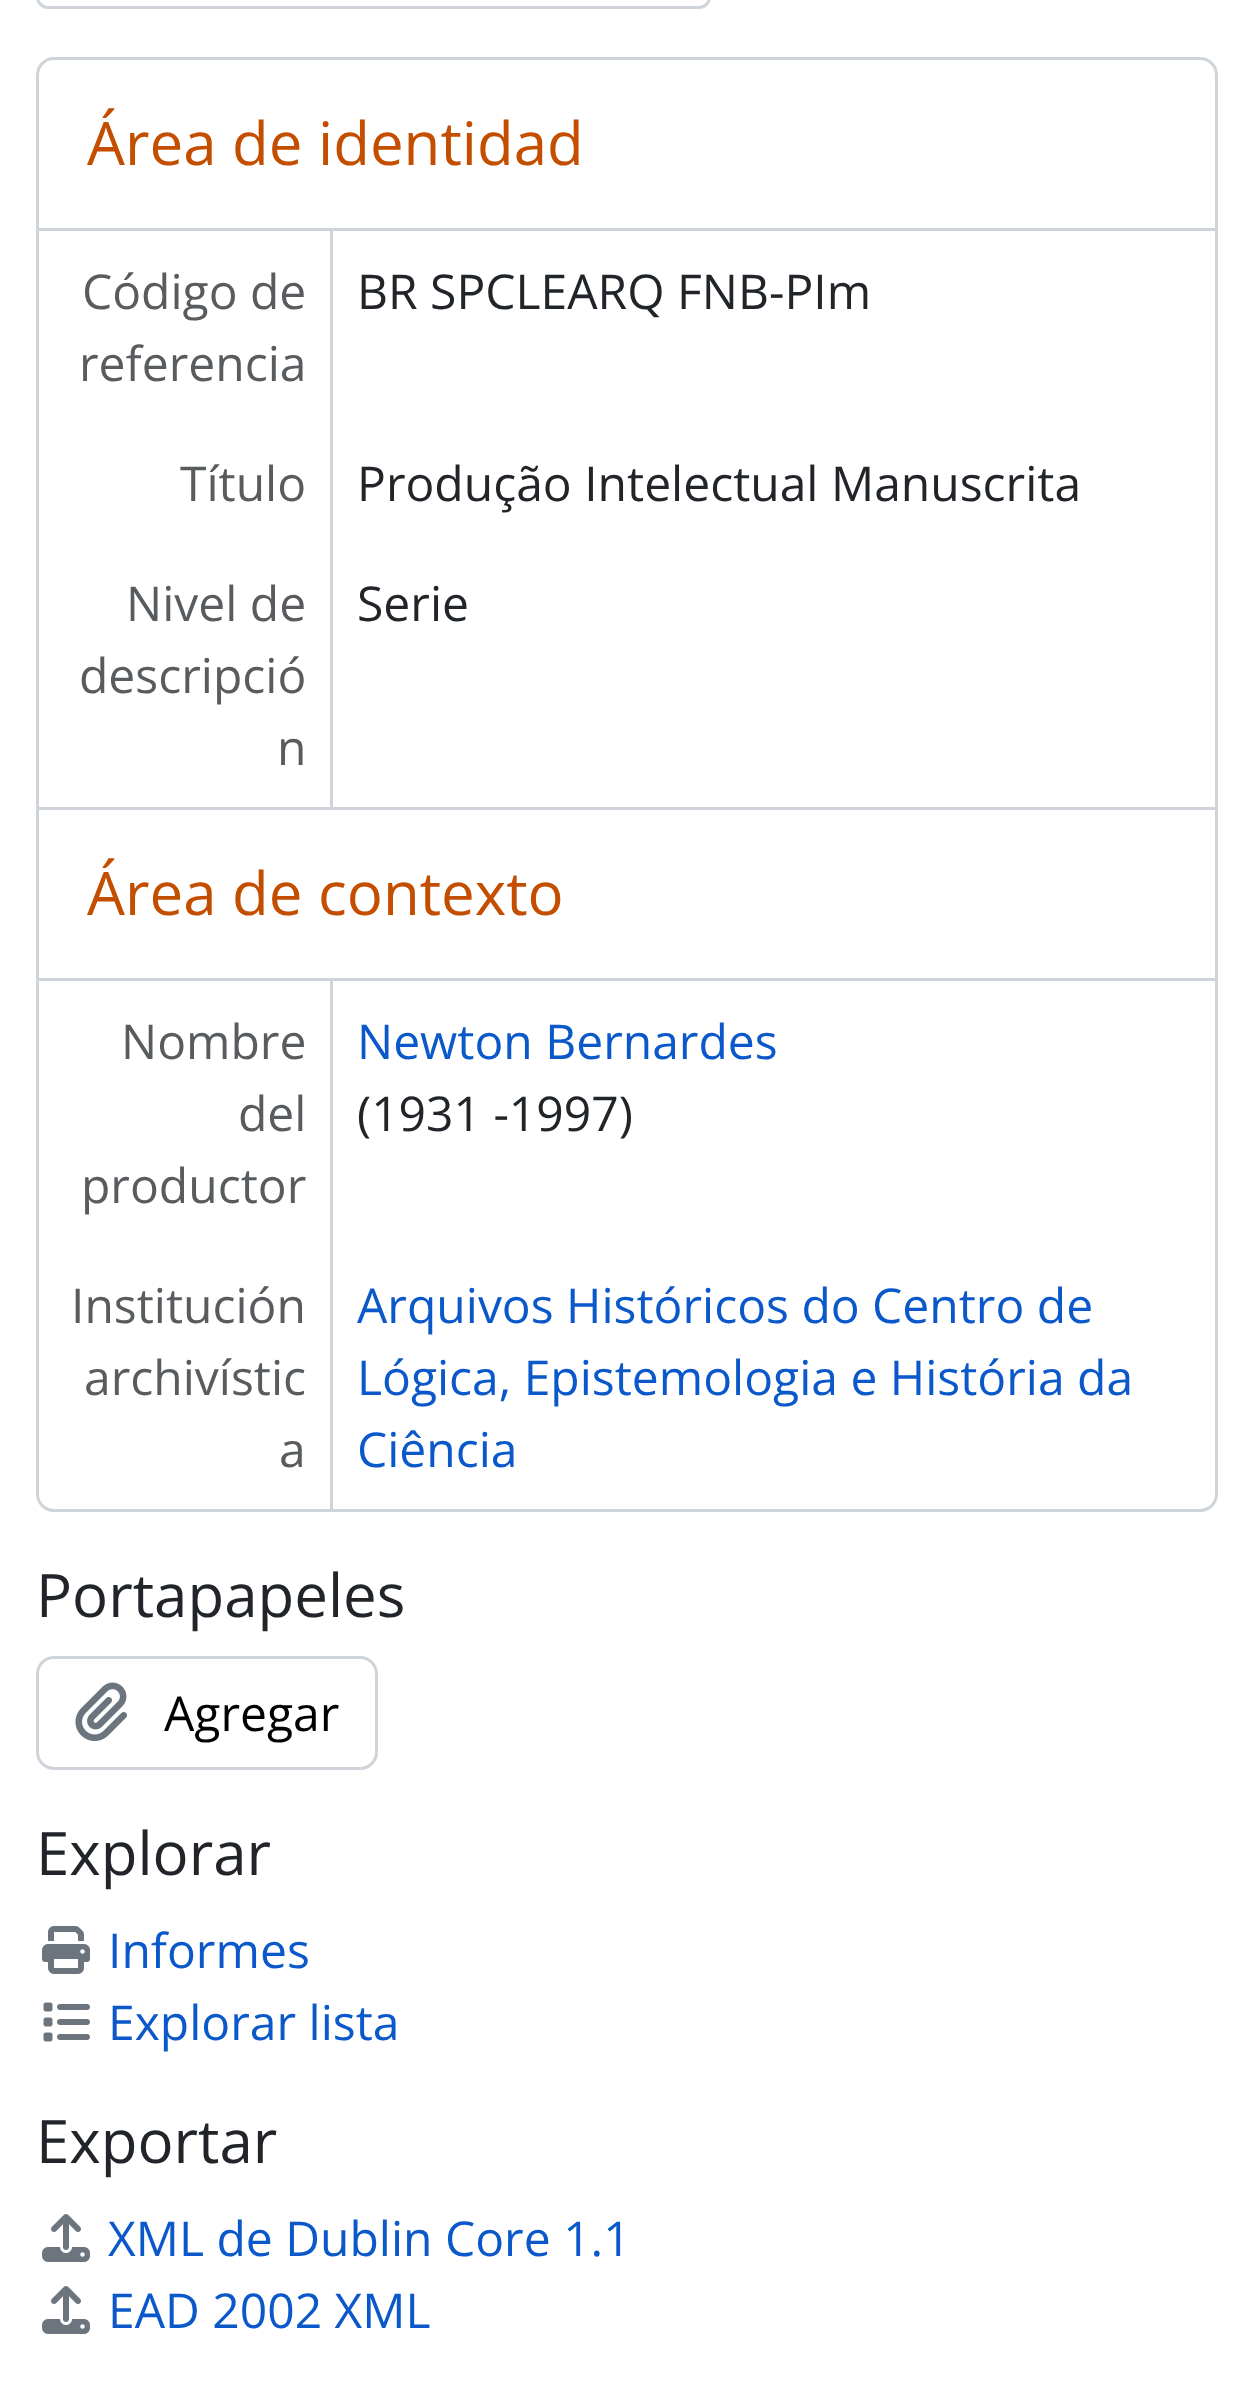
<svg xmlns="http://www.w3.org/2000/svg" width="1252" height="2394" viewBox="0 0 1252 2394">
  <style>
    .t1 { font: 60px Open Sans; fill: #c44e00; }
    .t2 { font: 48px Open Sans; fill: #595c5f; }
    .t3 { font: 48px Open Sans; fill: #212529; }
    .t4 { font: 48px Open Sans; fill: #0a58ca; }
    .t5 { font: 60px Open Sans; fill: #212529; }
    .t6 { font: 48px Open Sans; fill: #000; }
  </style>
  <rect width="100%" height="100%" fill="#fff"/>
  <rect x="37.5" y="-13.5" width="672" height="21" rx="10.5" fill="none" stroke="#ced4da" stroke-width="3"/>
  <rect x="37.5" y="58.5" width="1179" height="1452" rx="16.5" fill="none" stroke="#ced4da" stroke-width="3"/>
  <rect x="39" y="807" width="1176" height="3" fill="#ced4da"/>
  <rect x="39" y="228" width="1176" height="3" fill="#ced4da"/>
  <text x="87" y="165" class="t1">Área de identidad</text>
  <rect x="330" y="231" width="3" height="576" fill="#ced4da"/>
  <text x="82" y="309" class="t2">Código de</text>
  <text x="79" y="381" class="t2">referencia</text>
  <text x="357" y="309" class="t3">BR SPCLEARQ FNB-PIm</text>
  <text x="180" y="501" class="t2">Título</text>
  <text x="357" y="501" class="t3">Produção Intelectual Manuscrita</text>
  <text x="126" y="621" class="t2">Nivel de</text>
  <text x="79" y="693" class="t2">descripció</text>
  <text x="277" y="765" class="t2">n</text>
  <text x="357" y="621" class="t3">Serie</text>
  <rect x="39" y="978" width="1176" height="3" fill="#ced4da"/>
  <text x="87" y="915" class="t1">Área de contexto</text>
  <rect x="330" y="981" width="3" height="528" fill="#ced4da"/>
  <text x="121" y="1059" class="t2">Nombre</text>
  <text x="238" y="1131" class="t2">del</text>
  <text x="81" y="1203" class="t2">productor</text>
  <text x="357" y="1059" class="t4">Newton Bernardes</text>
  <text x="357" y="1131" class="t3">(1931 -1997)</text>
  <text x="71" y="1323" class="t2">Institución</text>
  <text x="84" y="1395" class="t2">archivístic</text>
  <text x="279" y="1467" class="t2">a</text>
  <text x="357" y="1323" class="t4">Arquivos Históricos do Centro de</text>
  <text x="357" y="1395" class="t4">Lógica, Epistemologia e História da</text>
  <text x="357" y="1467" class="t4">Ciência</text>
  <text x="36" y="1617" class="t5">Portapapeles</text>
  <rect x="37.5" y="1657.5" width="339" height="111" rx="16.5" fill="none" stroke="#ced4da" stroke-width="3"/>
  <image x="75" y="1682" width="52" height="59" href="images/1.png"/>
  <text x="164" y="1731" class="t6">Agregar</text>
  <text x="36" y="1875" class="t5">Explorar</text>
  <image x="42" y="1926" width="48" height="48" href="images/2.png"/>
  <text x="108" y="1968" class="t4">Informes</text>
  <image x="43" y="2002" width="47" height="40" href="images/3.png"/>
  <text x="108" y="2040" class="t4">Explorar lista</text>
  <text x="36" y="2163" class="t5">Exportar</text>
  <image x="42" y="2214" width="48" height="48" href="images/4.png"/>
  <text x="108" y="2256" class="t4">XML de Dublin Core 1.1</text>
  <image x="42" y="2286" width="48" height="48" href="images/4.png"/>
  <text x="108" y="2328" class="t4">EAD 2002 XML</text>
</svg>
